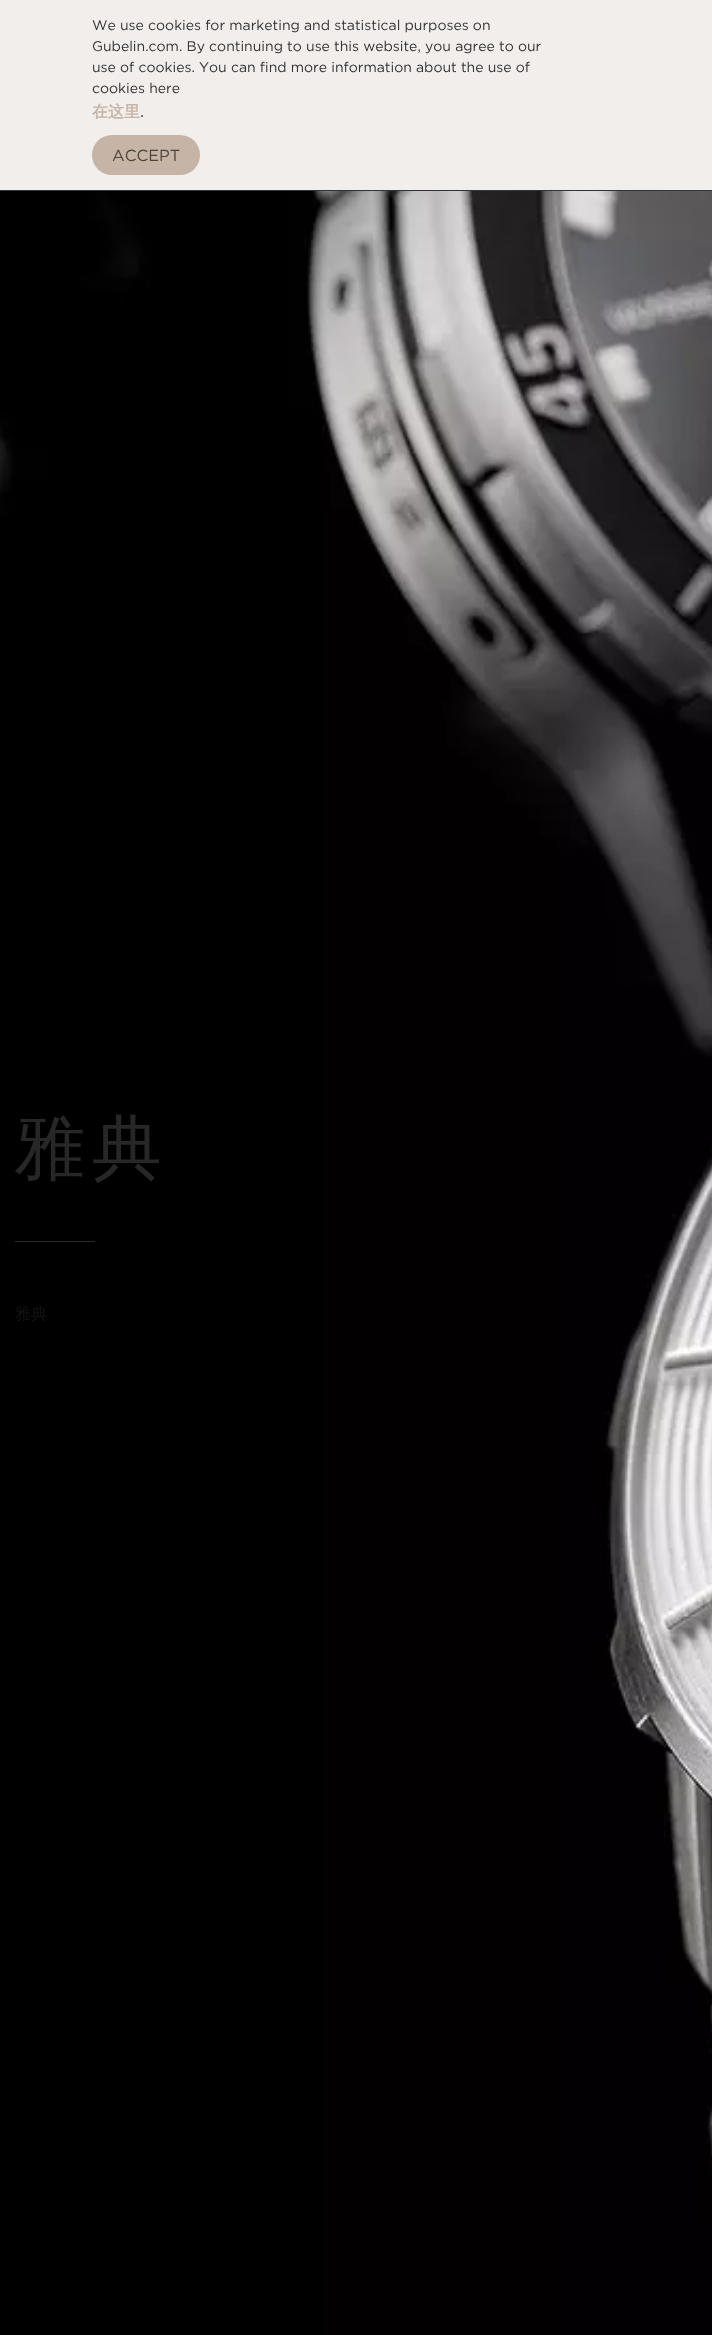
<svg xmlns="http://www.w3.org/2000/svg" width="712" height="2335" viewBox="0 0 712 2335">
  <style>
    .t1 { font: 14px Gotham; fill: #333; }
    .t2 { font: bold 16px WenQuanYi Zen Hei; fill: #c6b4a6; }
    .t3 { font: 17px Gotham; fill: #333; }
    .t4 { font: 16px Gotham; fill: #4d433b; }
    .t5 { font: 500 70px WenQuanYi Zen Hei; letter-spacing: 7px; fill: #272727; }
    .t6 { font: 500 16px WenQuanYi Zen Hei; fill: #131313; }
  </style>
  <rect width="100%" height="100%" fill="#fff"/>
  <rect x="0" y="0" width="712" height="190" fill="#f2eeeb"/>
  <rect x="0" y="190" width="712" height="1" fill="#333"/>
  <text x="92" y="30" class="t1">We use cookies for marketing and statistical purposes on</text>
  <text x="92" y="51" class="t1">Gubelin.com. By continuing to use this website, you agree to our</text>
  <text x="92" y="72" class="t1">use of cookies. You can find more information about the use of</text>
  <text x="92" y="93" class="t1">cookies here</text>
  <text x="92" y="117" class="t2">在这里</text>
  <text x="140" y="117" class="t3">.</text>
  <rect x="92" y="135" width="108" height="40" rx="20" fill="#c6b4a6"/>
  <text x="112" y="161" class="t4">ACCEPT</text>
  <image x="0" y="191" width="712" height="2144" href="images/1.png"/>
  <text x="15" y="1172" class="t5">雅典</text>
  <rect x="15" y="1241" width="80" height="1" fill="#272727"/>
  <text x="15" y="1319" class="t6">雅典</text>
</svg>
